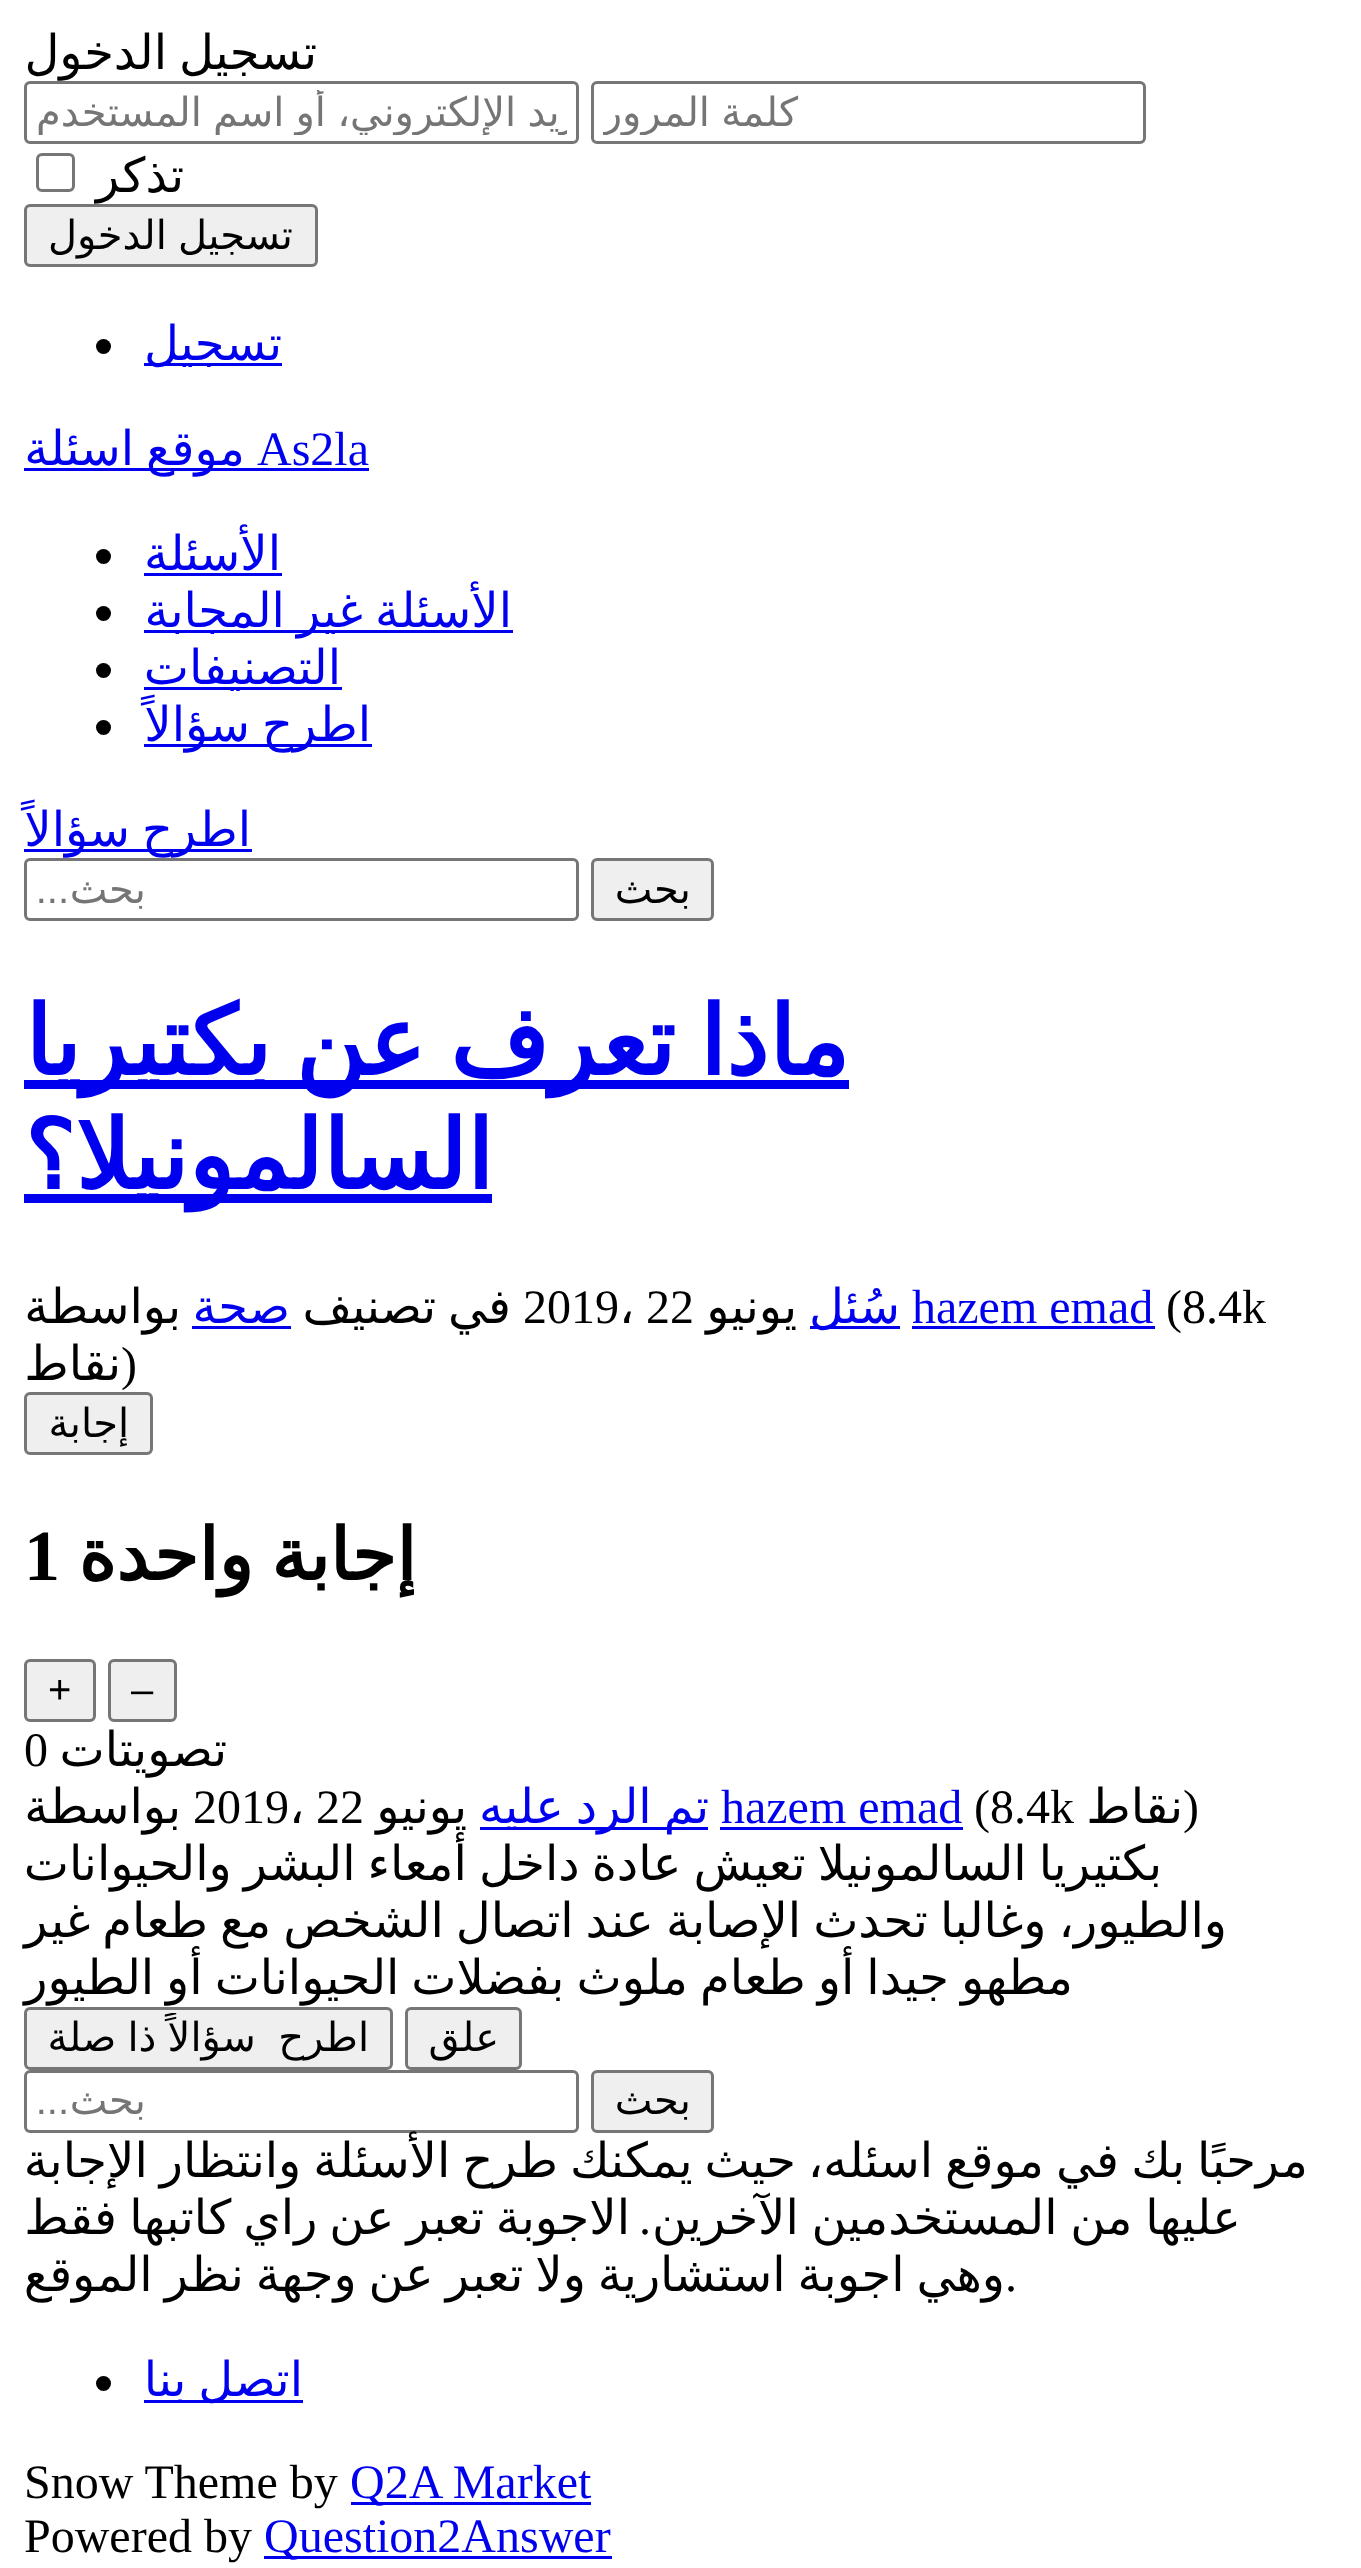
<svg xmlns="http://www.w3.org/2000/svg" width="1361" height="2568" viewBox="0 0 1361 2568">
  <style>
    .t1 { font: 48px DejaVu Sans; direction: rtl; fill: #000; }
    .t2 { font: 40px DejaVu Sans; direction: rtl; fill: #757575; }
    .t3 { font: 40px DejaVu Sans; direction: rtl; fill: #000; }
    .t4 { font: 48px DejaVu Sans; direction: rtl; fill: #00e; }
    .t5 { font: 48px Liberation Serif; fill: #00e; }
    .t6 { font: 40px Liberation Sans; direction: rtl; fill: #757575; }
    .t7 { font: bold 96px DejaVu Sans; direction: rtl; fill: #00e; }
    .t8 { font: 48px Liberation Serif; fill: #000; }
    .t9 { font: 48px DejaVu Sans; fill: #000; }
    .t10 { font: bold 72px DejaVu Sans; direction: rtl; fill: #000; }
    .t11 { font: bold 72px Liberation Serif; fill: #000; }
    .t12 { font: 40px Liberation Sans; fill: #000; }
    .t13 { font: 48px Liberation Serif; direction: rtl; fill: #000; }
  </style>
  <defs>
    <clipPath id="clip1"><rect x="603" y="90" width="531" height="45"/></clipPath>
    <clipPath id="clip2"><rect x="36" y="90" width="531" height="45"/></clipPath>
    <clipPath id="clip3"><rect x="30" y="2013" width="357" height="51"/></clipPath>
  </defs>
  <rect width="100%" height="100%" fill="#fff"/>
  <text x="317" y="69" word-spacing="-3.25" class="t1">تسجيل الدخول</text>
  <rect x="592.5" y="82.5" width="552" height="60" rx="4.5" fill="none" stroke="#767676" stroke-width="3"/>
  <g clip-path="url(#clip1)">
    <text x="798" y="126" word-spacing="-1.5" class="t2">كلمة المرور</text>
  </g>
  <rect x="25.5" y="82.5" width="552" height="60" rx="4.5" fill="none" stroke="#767676" stroke-width="3"/>
  <g clip-path="url(#clip2)">
    <text x="617" y="126" word-spacing="-1.5" class="t2">البريد الإلكتروني، أو اسم المستخدم</text>
  </g>
  <text x="184" y="192" class="t1">تذكر</text>
  <rect x="37.5" y="154.5" width="36" height="36" rx="4.5" fill="none" stroke="#767676" stroke-width="3"/>
  <rect x="25.5" y="205.5" width="291" height="60" rx="4.5" fill="#efefef" stroke="#767676" stroke-width="3"/>
  <text x="293" y="249" word-spacing="-1.5" class="t3">تسجيل الدخول</text>
  <rect x="144" y="363" width="138" height="3" fill="#00e"/>
  <text x="282" y="360" class="t4">تسجيل</text>
  <circle cx="103.5" cy="346.5" r="7.5" fill="#000"/>
  <text x="257" y="465" class="t5">As2la</text>
  <rect x="24" y="468" width="345" height="3" fill="#00e"/>
  <text x="245" y="465" class="t4">موقع</text>
  <text x="134" y="465" class="t4">اسئلة</text>
  <text x="281" y="570" class="t4">الأسئلة</text>
  <rect x="144" y="573" width="138" height="3" fill="#00e"/>
  <circle cx="103.5" cy="556.5" r="7.5" fill="#000"/>
  <rect x="144" y="630" width="369" height="3" fill="#00e"/>
  <text x="512" y="627" word-spacing="-3.25" class="t4">الأسئلة غير المجابة</text>
  <circle cx="103.5" cy="613.5" r="7.5" fill="#000"/>
  <rect x="144" y="687" width="198" height="3" fill="#00e"/>
  <text x="341" y="684" class="t4">التصنيفات</text>
  <circle cx="103.5" cy="670.5" r="7.5" fill="#000"/>
  <rect x="144" y="744" width="228" height="3" fill="#00e"/>
  <text x="371" y="741" word-spacing="-3.25" class="t4">اطرح سؤالاً</text>
  <circle cx="103.5" cy="727.5" r="7.5" fill="#000"/>
  <rect x="24" y="849" width="228" height="3" fill="#00e"/>
  <text x="251" y="846" word-spacing="-3.25" class="t4">اطرح سؤالاً</text>
  <rect x="592.5" y="859.5" width="120" height="60" rx="4.5" fill="#efefef" stroke="#767676" stroke-width="3"/>
  <text x="691" y="903" class="t3">بحث</text>
  <rect x="25.5" y="859.5" width="552" height="60" rx="4.5" fill="none" stroke="#767676" stroke-width="3"/>
  <text x="146" y="903" class="t2">بحث</text>
  <text x="69" y="903" class="t6">...</text>
  <rect x="24" y="1080" width="825" height="9" fill="#00e"/>
  <text x="849" y="1075" word-spacing="-6.5" class="t7">ماذا تعرف عن بكتيريا</text>
  <rect x="24" y="1194" width="468" height="9" fill="#00e"/>
  <text x="493" y="1189" class="t7">السالمونيلا؟</text>
  <text x="1166" y="1323" class="t8">(8.4k</text>
  <text x="912" y="1323" class="t5">hazem emad</text>
  <rect x="912" y="1326" width="243" height="3" fill="#00e"/>
  <rect x="810" y="1326" width="90" height="3" fill="#00e"/>
  <text x="900" y="1323" class="t4">سُئل</text>
  <text x="797" y="1323" class="t1">يونيو</text>
  <text x="646" y="1323" class="t8">22</text>
  <text x="619" y="1323" class="t9">،</text>
  <text x="523" y="1323" class="t8">2019</text>
  <text x="511" y="1323" word-spacing="-3.25" class="t1">في تصنيف</text>
  <text x="290" y="1323" class="t4">صحة</text>
  <rect x="192" y="1326" width="99" height="3" fill="#00e"/>
  <text x="181" y="1323" class="t1">بواسطة</text>
  <text x="121" y="1380" class="t8">)</text>
  <text x="121" y="1380" class="t1">نقاط</text>
  <rect x="25.5" y="1393.5" width="126" height="60" rx="4.5" fill="#efefef" stroke="#767676" stroke-width="3"/>
  <text x="129" y="1437" class="t3">إجابة</text>
  <text x="416" y="1580" word-spacing="-5" class="t10">إجابة واحدة</text>
  <text x="24" y="1580" class="t11">1</text>
  <rect x="109.5" y="1660.5" width="66" height="60" rx="4.5" fill="#efefef" stroke="#767676" stroke-width="3"/>
  <text x="131" y="1703" class="t12">–</text>
  <rect x="25.5" y="1660.5" width="69" height="60" rx="4.5" fill="#efefef" stroke="#767676" stroke-width="3"/>
  <text x="48" y="1703" class="t12">+</text>
  <text x="227" y="1766" class="t1">تصويتات</text>
  <text x="24" y="1766" class="t8">0</text>
  <text x="1183" y="1823" class="t8">)</text>
  <text x="1183" y="1823" class="t1">نقاط</text>
  <text x="974" y="1823" class="t8">(8.4k</text>
  <text x="721" y="1823" class="t5">hazem emad</text>
  <rect x="480" y="1827" width="228" height="3" fill="#00e"/>
  <text x="709" y="1823" word-spacing="-3.25" class="t4">تم الرد عليه</text>
  <rect x="720" y="1827" width="243" height="3" fill="#00e"/>
  <text x="467" y="1823" class="t1">يونيو</text>
  <text x="316" y="1823" class="t8">22</text>
  <text x="289" y="1823" class="t9">،</text>
  <text x="193" y="1823" class="t8">2019</text>
  <text x="181" y="1823" class="t1">بواسطة</text>
  <text x="1162" y="1880" word-spacing="-3.25" class="t1">بكتيريا السالمونيلا تعيش عادة داخل أمعاء البشر والحيوانات</text>
  <text x="1227" y="1937" word-spacing="-3.25" class="t1">والطيور، وغالبا تحدث الإصابة عند اتصال الشخص مع طعام غير</text>
  <text x="1073" y="1994" word-spacing="-3.25" class="t1">مطهو جيدا أو طعام ملوث بفضلات الحيوانات أو الطيور</text>
  <rect x="406.5" y="2008.5" width="114" height="60" rx="4.5" fill="#efefef" stroke="#767676" stroke-width="3"/>
  <text x="499" y="2051" class="t3">علق</text>
  <rect x="25.5" y="2008.5" width="366" height="60" rx="4.5" fill="#efefef" stroke="#767676" stroke-width="3"/>
  <g clip-path="url(#clip3)">
    <text x="369" y="2051" word-spacing="-1.5" class="t3" xml:space="preserve">اطرح  سؤالاً ذا صلة</text>
  </g>
  <rect x="25.5" y="2071.5" width="552" height="60" rx="4.5" fill="none" stroke="#767676" stroke-width="3"/>
  <text x="1308" y="2177" word-spacing="-3.25" class="t1">مرحبًا بك</text>
  <text x="1119" y="2177" word-spacing="-3.25" class="t1">في موقع اسئله، حيث يمكنك طرح الأسئلة وانتظار الإجابة</text>
  <rect x="592.5" y="2071.5" width="120" height="60" rx="4.5" fill="#efefef" stroke="#767676" stroke-width="3"/>
  <text x="691" y="2114" class="t3">بحث</text>
  <text x="146" y="2114" class="t2">بحث</text>
  <text x="69" y="2114" class="t6">...</text>
  <text x="1241" y="2234" word-spacing="-2.5" class="t1">عليها من المستخدمين الآخرين</text>
  <text x="651" y="2234" class="t13">.</text>
  <text x="630" y="2234" class="t1">الاجوبة</text>
  <text x="484" y="2234" word-spacing="-3.25" class="t1">تعبر عن راي كاتبها</text>
  <text x="117" y="2234" class="t1">فقط</text>
  <text x="1005" y="2291" word-spacing="-3.25" class="t1">وهي اجوبة استشارية ولا تعبر عن وجهة نظر الموقع</text>
  <text x="1005" y="2291" class="t8">.</text>
  <rect x="144" y="2400" width="159" height="3" fill="#00e"/>
  <text x="303" y="2396" word-spacing="-3.25" class="t4">اتصل بنا</text>
  <circle cx="103.5" cy="2383.5" r="7.5" fill="#000"/>
  <rect x="351" y="2502" width="240" height="3" fill="#00e"/>
  <text x="350" y="2498" class="t5">Q2A Market</text>
  <text x="24" y="2498" class="t8">Snow Theme by</text>
  <rect x="264" y="2556" width="348" height="3" fill="#00e"/>
  <text x="264" y="2552" class="t5">Question2Answer</text>
  <text x="24" y="2552" class="t8">Powered by</text>
</svg>
